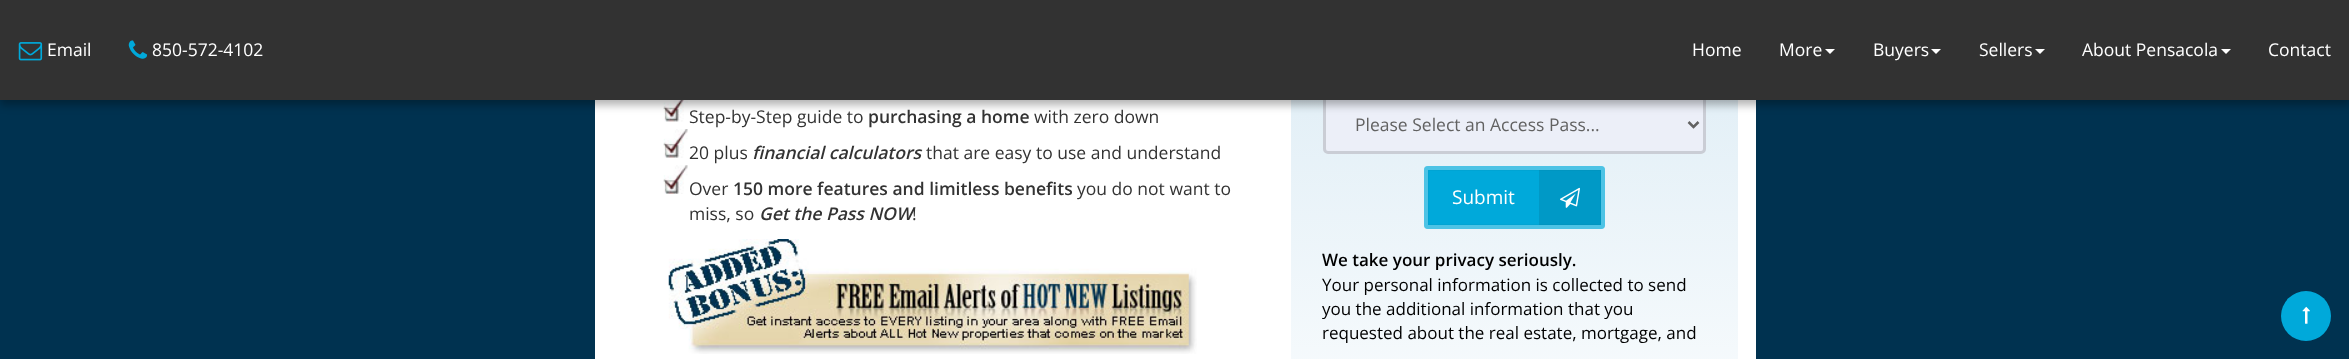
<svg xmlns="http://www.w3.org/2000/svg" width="2349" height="359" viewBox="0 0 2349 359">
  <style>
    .t1 { font: 17.5px Open Sans; fill: #fff; }
    .t2 { font: 17.5px Open Sans; fill: #333; }
    .t3 { font: 600 17.5px Open Sans; fill: #333; }
    .t4 { font: italic 600 17.5px Open Sans; fill: #333; }
    .t5 { font: 17.5px Open Sans; fill: #626262; }
    .t6 { font: 19px Open Sans; fill: #fff; }
    .t7 { font: 600 17px Open Sans; fill: #000; }
    .t8 { font: 17px Open Sans; fill: #000; }
  </style>
  <defs>
    <linearGradient id="g1" gradientUnits="userSpaceOnUse" x1="1514" y1="-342" x2="1514" y2="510"><stop offset="0" stop-color="#c5dfee"/><stop offset="1" stop-color="#fff"/></linearGradient>
  </defs>
  <rect width="100%" height="100%" fill="#003250"/>
  <rect x="595" y="100" width="1161" height="259" fill="#fff"/>
  <image x="663" y="100" width="25" height="22" href="images/3.png"/>
  <rect x="1291" y="100" width="447" height="259" fill="url(#g1)"/>
  <rect x="1324.5" y="96.5" width="380" height="56" rx="3.5" fill="#eceff8" stroke="#cacdd5" stroke-width="3"/>
  <rect x="0" y="5" width="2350" height="100" fill="#0000004d" filter="blur(4.5px)"/>
  <rect x="0" y="0" width="2349" height="100" fill="#323232"/>
  <image x="18" y="42" width="25" height="19" href="images/1.png"/>
  <text x="47" y="56" class="t1">Email</text>
  <image x="128" y="40" width="20" height="19" href="images/2.png"/>
  <text x="152" y="56" class="t1">850-572-4102</text>
  <text x="1692" y="56" class="t1">Home</text>
  <text x="1779" y="56" class="t1">More</text>
  <path d="M1825 49H1835L1830 54Z" fill="#fff"/>
  <text x="1873" y="56" class="t1">Buyers</text>
  <path d="M1931 49H1941L1936 54Z" fill="#fff"/>
  <text x="1979" y="56" class="t1">Sellers</text>
  <path d="M2035 49H2045L2040 54Z" fill="#fff"/>
  <text x="2082" y="56" class="t1">About Pensacola</text>
  <path d="M2221 49H2231L2226 54Z" fill="#fff"/>
  <text x="2268" y="56" class="t1">Contact</text>
  <text x="689" y="123" class="t2">Step-by-Step guide to</text>
  <text x="868" y="123" class="t3">purchasing a home</text>
  <text x="1034" y="123" class="t2">with zero down</text>
  <image x="663" y="129" width="25" height="29" href="images/4.png"/>
  <text x="689" y="159" class="t2">20 plus</text>
  <text x="752" y="159" class="t4">financial calculators</text>
  <text x="926" y="159" class="t2">that are easy to use and understand</text>
  <image x="663" y="165" width="25" height="29" href="images/5.png"/>
  <text x="689" y="195" class="t2">Over</text>
  <text x="733" y="195" class="t3">150 more features and limitless benefits</text>
  <text x="1077" y="195" class="t2">you do not want to</text>
  <text x="689" y="220" class="t2">miss, so</text>
  <text x="759" y="220" class="t4">Get the Pass NOW</text>
  <text x="912" y="220" class="t2">!</text>
  <image x="668" y="239" width="529" height="115" href="images/6.png"/>
  <path d="M1688.5 122L1693.5 127L1698.5 122" fill="none" stroke="#626262" stroke-width="2.5"/>
  <text x="1355" y="131" class="t5">Please Select an Access Pass...</text>
  <rect x="1424" y="166" width="181" height="63" rx="4" fill="#00a9da"/>
  <rect x="1428.5" y="170.5" width="172" height="54" fill="none" stroke="#00a4d3"/>
  <rect x="1426" y="168" width="177" height="59" rx="2" fill="none" stroke="#ffffff4d" stroke-width="4"/>
  <text x="1452" y="204" class="t6">Submit</text>
  <rect x="1539" y="170" width="62" height="55" fill="#00000017"/>
  <image x="1560" y="187" width="20" height="21" href="images/7.png"/>
  <text x="1322" y="266" class="t7">We take your privacy seriously.</text>
  <text x="1322" y="291" class="t8">Your personal information is collected to send</text>
  <text x="1322" y="315" class="t8">you the additional information that you</text>
  <text x="1322" y="339" class="t8">requested about the real estate, mortgage, and</text>
  <circle cx="2306" cy="316" r="25" fill="#00a9da"/>
  <image x="2302" y="306" width="8" height="18" href="images/8.png"/>
</svg>
